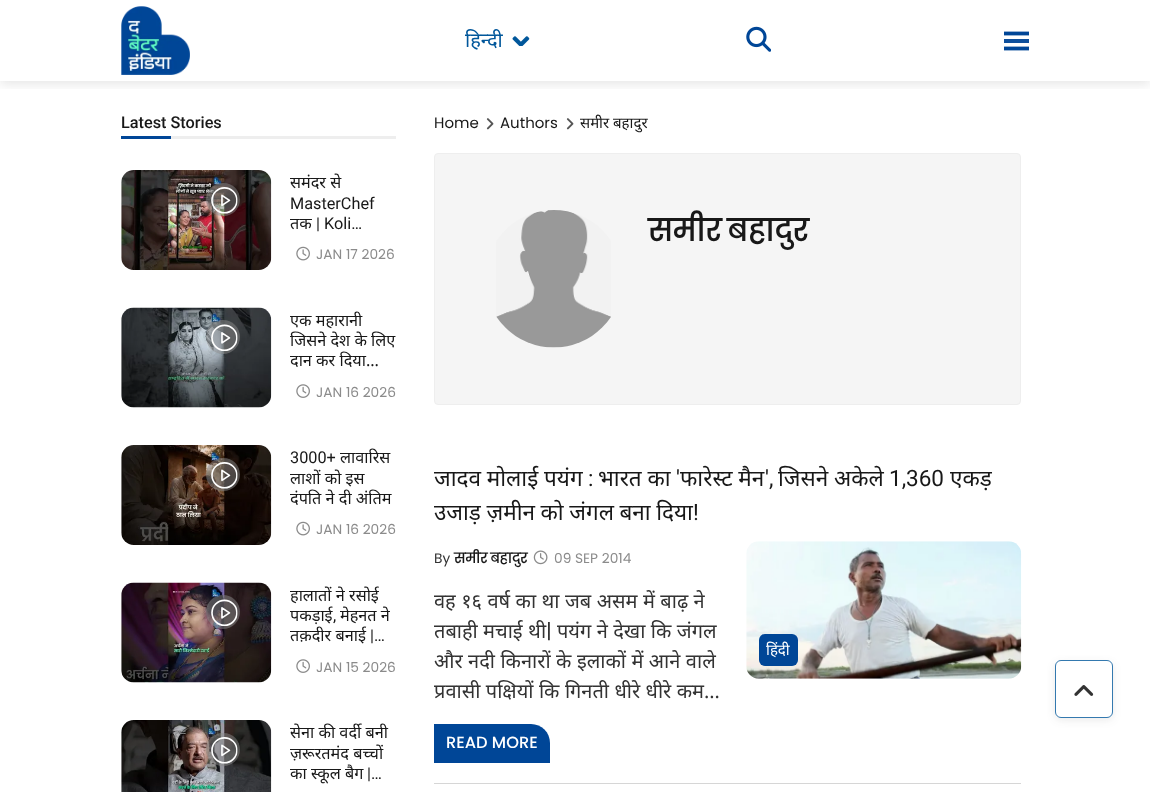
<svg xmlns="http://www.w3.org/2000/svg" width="1150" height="792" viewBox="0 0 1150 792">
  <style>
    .t1 { font: 20px Noto Sans; fill: #01579b; }
    .t2 { font: 500 16.25px Roboto; fill: #181818; }
    .t3 { font: 16.25px Noto Sans; fill: #181818; }
    .t4 { font: 16.25px Roboto; fill: #181818; }
    .t5 { font: 13.75px Poppins; fill: #8b8b8b; }
    .t6 { font: 15px Poppins; fill: #181818; }
    .t7 { font: 15px Noto Sans; fill: #181818; }
    .t8 { font: bold 30px Poppins; fill: #181818; }
    .t9 { font: 22.5px Noto Sans; fill: #181818; }
    .t10 { font: 22.5px Roboto; fill: #181818; }
    .t11 { font: 13.75px Poppins; fill: #333; }
    .t12 { font: bold 13.75px Poppins; fill: #181818; }
    .t13 { font: 20px Noto Sans; fill: #333; }
    .t14 { font: 20px Poppins; fill: #333; }
    .t15 { font: 15px Noto Sans; fill: #fff; }
    .t16 { font: 500 16.25px Poppins; fill: #fff; }
  </style>
  <defs>
    <clipPath id="clip1"><rect x="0" y="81" width="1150" height="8"/></clipPath>
    <clipPath id="clip2"><rect x="290" y="445" width="106" height="64"/></clipPath>
    <clipPath id="clip3"><rect x="290" y="720" width="106" height="64"/></clipPath>
  </defs>
  <rect width="100%" height="100%" fill="#fff"/>
  <g clip-path="url(#clip1)">
    <rect x="0" y="3" width="1150" height="81" fill="#0000001a" filter="blur(6px)"/>
  </g>
  <image x="121" y="6" width="69" height="69" href="images/1.png"/>
  <text x="465" y="47" class="t1">हिन्दी</text>
  <image x="512" y="36" width="18" height="10" href="images/2.png"/>
  <image x="746" y="26" width="25" height="26" href="images/3.png"/>
  <path d="M1004 33.5H1029" fill="none" stroke="#004697" stroke-width="3.8"/>
  <rect x="1004" y="39" width="25" height="4" fill="#0d4f9c"/>
  <path d="M1004 48.5H1029" fill="none" stroke="#004697" stroke-width="3.8"/>
  <text x="121" y="128" class="t2">Latest Stories</text>
  <rect x="121" y="136" width="50" height="3" fill="#004697"/>
  <rect x="171" y="136" width="225" height="3" fill="#eee"/>
  <image x="121" y="170" width="151" height="100" href="images/4.png"/>
  <rect x="206" y="183" width="34" height="33" rx="16.5" fill="#8a8a8a80"/>
  <image x="211" y="187" width="27" height="27" href="images/5.png"/>
  <text x="290" y="188" class="t3">समंदर से</text>
  <text x="290" y="209" class="t4">MasterChef</text>
  <text x="290" y="229" class="t3">तक</text>
  <text x="316" y="229" class="t4">| Koli…</text>
  <image x="296" y="246" width="14" height="15" href="images/6.png"/>
  <text x="316" y="259" class="t5">JAN 17 2026</text>
  <image x="121" y="307" width="151" height="101" href="images/7.png"/>
  <circle cx="223" cy="337" r="17" fill="#8a8a8a80"/>
  <image x="211" y="324" width="27" height="27" href="images/8.png"/>
  <text x="290" y="326" class="t3">एक महारानी</text>
  <text x="290" y="346" class="t3">जिसने देश के लिए</text>
  <text x="290" y="366" class="t3">दान कर दिया…</text>
  <image x="296" y="384" width="14" height="14" href="images/9.png"/>
  <text x="316" y="397" class="t5">JAN 16 2026</text>
  <image x="121" y="445" width="151" height="100" href="images/10.png"/>
  <rect x="206" y="458" width="34" height="33" rx="16.5" fill="#8a8a8a80"/>
  <image x="211" y="462" width="27" height="27" href="images/11.png"/>
  <text x="290" y="463" class="t4">3000+</text>
  <text x="340" y="463" class="t3">लावारिस</text>
  <text x="290" y="484" class="t3">लाशों को इस</text>
  <g clip-path="url(#clip2)">
    <text x="290" y="504" class="t3">दंपति ने दी अंतिम</text>
  </g>
  <image x="296" y="521" width="14" height="15" href="images/6.png"/>
  <text x="316" y="534" class="t5">JAN 16 2026</text>
  <image x="121" y="582" width="151" height="101" href="images/12.png"/>
  <circle cx="223" cy="612" r="17" fill="#8a8a8a80"/>
  <image x="211" y="599" width="27" height="27" href="images/13.png"/>
  <text x="290" y="601" class="t3">हालातों ने रसोई</text>
  <text x="290" y="621" class="t3">पकड़ाई</text>
  <text x="333" y="621" class="t4">,</text>
  <text x="340" y="621" class="t3">मेहनत ने</text>
  <text x="290" y="641" class="t3">तक़दीर बनाई</text>
  <text x="370" y="641" class="t4">|…</text>
  <image x="296" y="659" width="14" height="14" href="images/9.png"/>
  <text x="316" y="672" class="t5">JAN 15 2026</text>
  <image x="121" y="720" width="151" height="72" href="images/14.png"/>
  <rect x="206" y="733" width="34" height="33" rx="16.5" fill="#8a8a8a80"/>
  <image x="211" y="737" width="27" height="27" href="images/15.png"/>
  <g clip-path="url(#clip3)">
    <text x="290" y="738" class="t3">सेना की वर्दी बनी</text>
  </g>
  <text x="290" y="759" class="t3">ज़रूरतमंद बच्चों</text>
  <text x="290" y="779" class="t3">का स्कूल बैग</text>
  <text x="367" y="779" class="t4">|…</text>
  <text x="434" y="128" class="t6">Home</text>
  <image x="486" y="118" width="8" height="12" href="images/16.png"/>
  <text x="500" y="128" class="t6">Authors</text>
  <image x="566" y="118" width="8" height="12" href="images/16.png"/>
  <text x="580" y="128" class="t7">समीर बहादुर</text>
  <rect x="434.5" y="153.5" width="586" height="251" rx="3.5" fill="#f5f5f5" stroke="#eee"/>
  <image x="496" y="210" width="115" height="138" href="images/17.png"/>
  <text x="648" y="241" word-spacing="-2" class="t8">समीर बहादुर</text>
  <rect x="434" y="783" width="587" height="1" fill="#d6d6d6"/>
  <text x="434" y="486" class="t9">जादव मोलाई पयंग</text>
  <text x="588" y="486" class="t10">:</text>
  <text x="598" y="486" class="t9">भारत का</text>
  <text x="676" y="486" class="t10">'</text>
  <text x="680" y="486" class="t9">फारेस्ट मैन</text>
  <text x="765" y="486" class="t10">',</text>
  <text x="778" y="486" class="t9">जिसने अकेले</text>
  <text x="889" y="486" class="t10">1,360</text>
  <text x="950" y="486" class="t9">एकड़</text>
  <text x="434" y="520" word-spacing="-0.25" class="t9">उजाड़ ज़मीन को जंगल बना दिया</text>
  <text x="693" y="520" class="t10">!</text>
  <text x="434" y="563" class="t11">By</text>
  <text x="454" y="563" word-spacing="-1" class="t12">समीर बहादुर</text>
  <image x="533" y="550" width="15" height="15" href="images/18.png"/>
  <text x="554" y="563" class="t5">09 SEP 2014</text>
  <text x="434" y="608" word-spacing="0.25" class="t13">वह १६ वर्ष का था जब असम में बाढ़ ने</text>
  <text x="434" y="638" class="t13">तबाही</text>
  <text x="483" y="638" word-spacing="0.25" class="t13">मचाई थी</text>
  <text x="546" y="638" class="t14">|</text>
  <text x="557" y="638" word-spacing="0.25" class="t13">पयंग ने देखा कि जंगल</text>
  <text x="434" y="668" word-spacing="0.25" class="t13">और नदी किनारों के इलाकों में आने वाले</text>
  <text x="434" y="698" word-spacing="0.25" class="t13">प्रवासी पक्षियों कि गिनती धीरे धीरे कम…</text>
  <image x="746" y="541" width="276" height="138" href="images/19.png"/>
  <rect x="759" y="634" width="39" height="32" rx="6" fill="#004697"/>
  <text x="766" y="655" class="t15">हिंदी</text>
  <path d="M434 724H531C541.5 724 550 732.5 550 743V763H434Z" fill="#004697"/>
  <text x="446" y="748" class="t16">READ MORE</text>
  <rect x="1055" y="663" width="58" height="57" rx="6" fill="#3333331a" filter="blur(4px)"/>
  <rect x="1055.5" y="660.5" width="57" height="57" rx="5.5" fill="#fff" stroke="#3479af"/>
  <image x="1074" y="685" width="20" height="11" href="images/20.png"/>
</svg>
